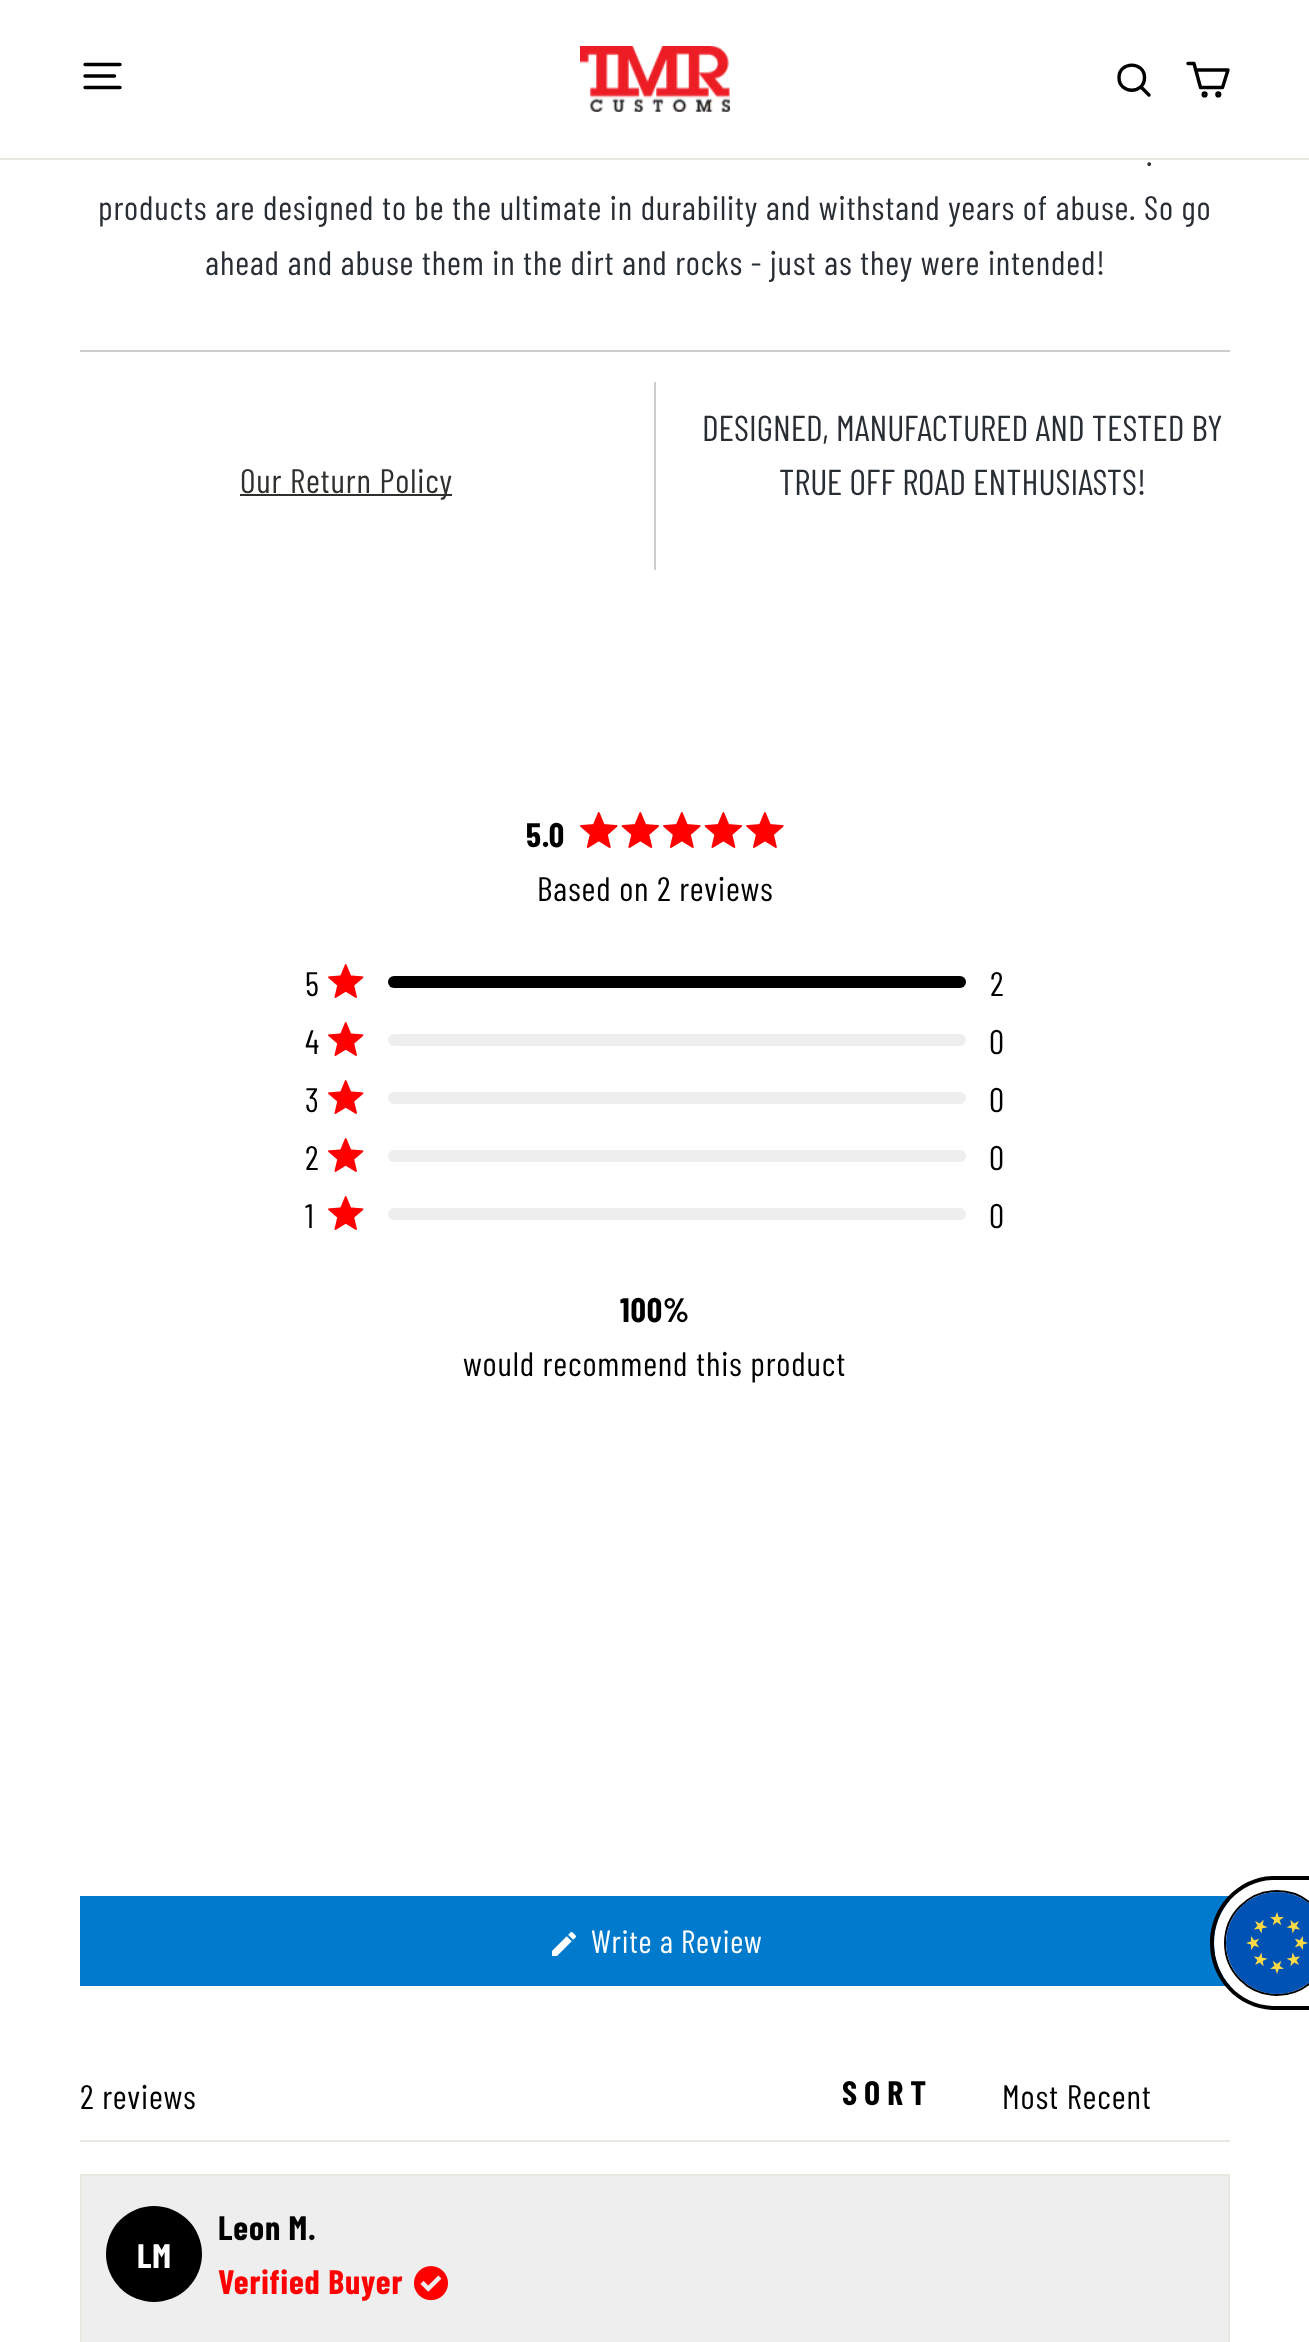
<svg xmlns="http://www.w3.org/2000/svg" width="1309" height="2342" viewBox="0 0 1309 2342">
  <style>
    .t1 { font: 34px Barlow Condensed; letter-spacing: 0.85px; fill: #292e34; }
    .t2 { font: 34px Barlow Condensed; letter-spacing: 0.85px; fill: #2e302b; }
    .t3 { font: 36px Barlow Condensed; fill: #292e34; }
    .t4 { font: bold 34px Barlow Condensed; letter-spacing: 0.85px; fill: #000; }
    .t5 { font: 34px Barlow Condensed; letter-spacing: 0.85px; fill: #000; }
    .t6 { font: 32px Barlow Condensed; letter-spacing: 0.85px; fill: #fff; }
    .t7 { font: bold 34px Barlow Condensed; letter-spacing: 7px; fill: #000; }
    .t8 { font: bold 34px Barlow Condensed; letter-spacing: 0.85px; fill: #fff; }
    .t9 { font: bold 34px Barlow Condensed; letter-spacing: 0.85px; fill: #f00; }
  </style>
  <rect width="100%" height="100%" fill="#fff"/>
  <rect x="0" y="158" width="1309" height="2" fill="#e8e8e1"/>
  <image x="580" y="46" width="150" height="66" href="images/1.png"/>
  <path d="M85 64.5H120M85 76H114.5M85 87.5H120" fill="none" stroke="#000" stroke-width="3.4" stroke-linecap="round" stroke-linejoin="round"/>
  <path d="M1144.5 77.5C1144.5 94.5 1119 94.5 1119 77.5C1119 61 1144.5 61 1144.5 77.5ZM1149 95L1141 87" fill="none" stroke="#000" stroke-width="3.4" stroke-linecap="round" stroke-linejoin="round"/>
  <path d="M1195.5 70H1228L1222.5 87.5H1200.5L1194 63.5H1188" fill="none" stroke="#000" stroke-width="3.4" stroke-linecap="round" stroke-linejoin="round"/>
  <circle cx="1204.6" cy="94.4" r="1.4" fill="none" stroke="#000" stroke-width="3.4"/>
  <circle cx="1218.3" cy="94.4" r="1.4" fill="none" stroke="#000" stroke-width="3.4"/>
  <rect x="80" y="350" width="1150" height="2" fill="#cdcdca"/>
  <text x="1146" y="166" class="t1">.</text>
  <text x="98" y="220" class="t1">products are designed to be the ultimate in durability and withstand years of abuse. So go</text>
  <text x="205" y="275" class="t1">ahead and abuse them in the dirt and rocks - just as they were intended!</text>
  <rect x="654" y="382" width="2" height="188" fill="#cdcdca"/>
  <rect x="240" y="494" width="212" height="2" fill="#2e302b"/>
  <text x="240" y="493" class="t2">Our Return Policy</text>
  <text x="702" y="441" class="t3">DESIGNED, MANUFACTURED AND TESTED BY</text>
  <text x="779" y="495" class="t3">TRUE OFF ROAD ENTHUSIASTS!</text>
  <text x="526" y="847" class="t4">5.0</text>
  <image x="580" y="812" width="204" height="36" href="images/2.png"/>
  <image x="580" y="812" width="204" height="36" href="images/3.png"/>
  <text x="537" y="901" class="t5">Based on 2 reviews</text>
  <text x="305" y="996" class="t5">5</text>
  <image x="328" y="964" width="36" height="34" href="images/4.png"/>
  <rect x="388" y="976" width="578" height="12" rx="6" fill="#000"/>
  <text x="990" y="996" class="t5">2</text>
  <text x="305" y="1054" class="t5">4</text>
  <image x="328" y="1022" width="36" height="34" href="images/4.png"/>
  <rect x="388" y="1034" width="578" height="12" rx="6" fill="#eee"/>
  <text x="989" y="1054" class="t5">0</text>
  <text x="305" y="1112" class="t5">3</text>
  <image x="328" y="1080" width="36" height="34" href="images/4.png"/>
  <rect x="388" y="1092" width="578" height="12" rx="6" fill="#eee"/>
  <text x="989" y="1112" class="t5">0</text>
  <text x="305" y="1170" class="t5">2</text>
  <image x="328" y="1138" width="36" height="34" href="images/4.png"/>
  <rect x="388" y="1150" width="578" height="12" rx="6" fill="#eee"/>
  <text x="989" y="1170" class="t5">0</text>
  <text x="305" y="1228" class="t5">1</text>
  <image x="328" y="1196" width="36" height="34" href="images/4.png"/>
  <rect x="388" y="1208" width="578" height="12" rx="6" fill="#eee"/>
  <text x="989" y="1228" class="t5">0</text>
  <text x="620" y="1322" class="t4">100%</text>
  <text x="463" y="1376" class="t5">would recommend this product</text>
  <rect x="80" y="1896" width="1150" height="90" fill="#007acc"/>
  <image x="552" y="1932" width="24" height="24" href="images/5.png"/>
  <text x="591" y="1953" class="t6">Write a Review</text>
  <text x="80" y="2109" class="t5">2 reviews</text>
  <text x="842" y="2105" class="t7">SORT</text>
  <text x="1002" y="2109" class="t5">Most Recent</text>
  <rect x="80" y="2140" width="1150" height="2" fill="#e8e8e1"/>
  <rect x="81" y="2175" width="1148" height="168" fill="#eee" stroke="#e8e8e1" stroke-width="2"/>
  <circle cx="154" cy="2254" r="48" fill="#000"/>
  <text x="137" y="2268" class="t8">LM</text>
  <text x="218" y="2240" class="t4">Leon M.</text>
  <text x="218" y="2294" class="t9">Verified Buyer</text>
  <image x="414" y="2266" width="34" height="35" href="images/6.png"/>
  <path d="M1275 1880H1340V2006H1275C1241 2006 1214 1978 1214 1943C1214 1908 1241 1880 1275 1880Z" fill="#fff"/>
  <path d="M1275 1876H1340V2010H1275C1239 2010 1210 1980 1210 1943C1210 1906 1239 1876 1275 1876ZM1275 1880H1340V2006H1275C1241 2006 1214 1978 1214 1943C1214 1908 1241 1880 1275 1880Z" fill="#000" fill-rule="evenodd"/>
  <circle cx="1277" cy="1943" r="52" fill="none" stroke="#000" stroke-width="2"/>
  <image x="1226" y="1892" width="83" height="102" href="images/7.png"/>
</svg>
